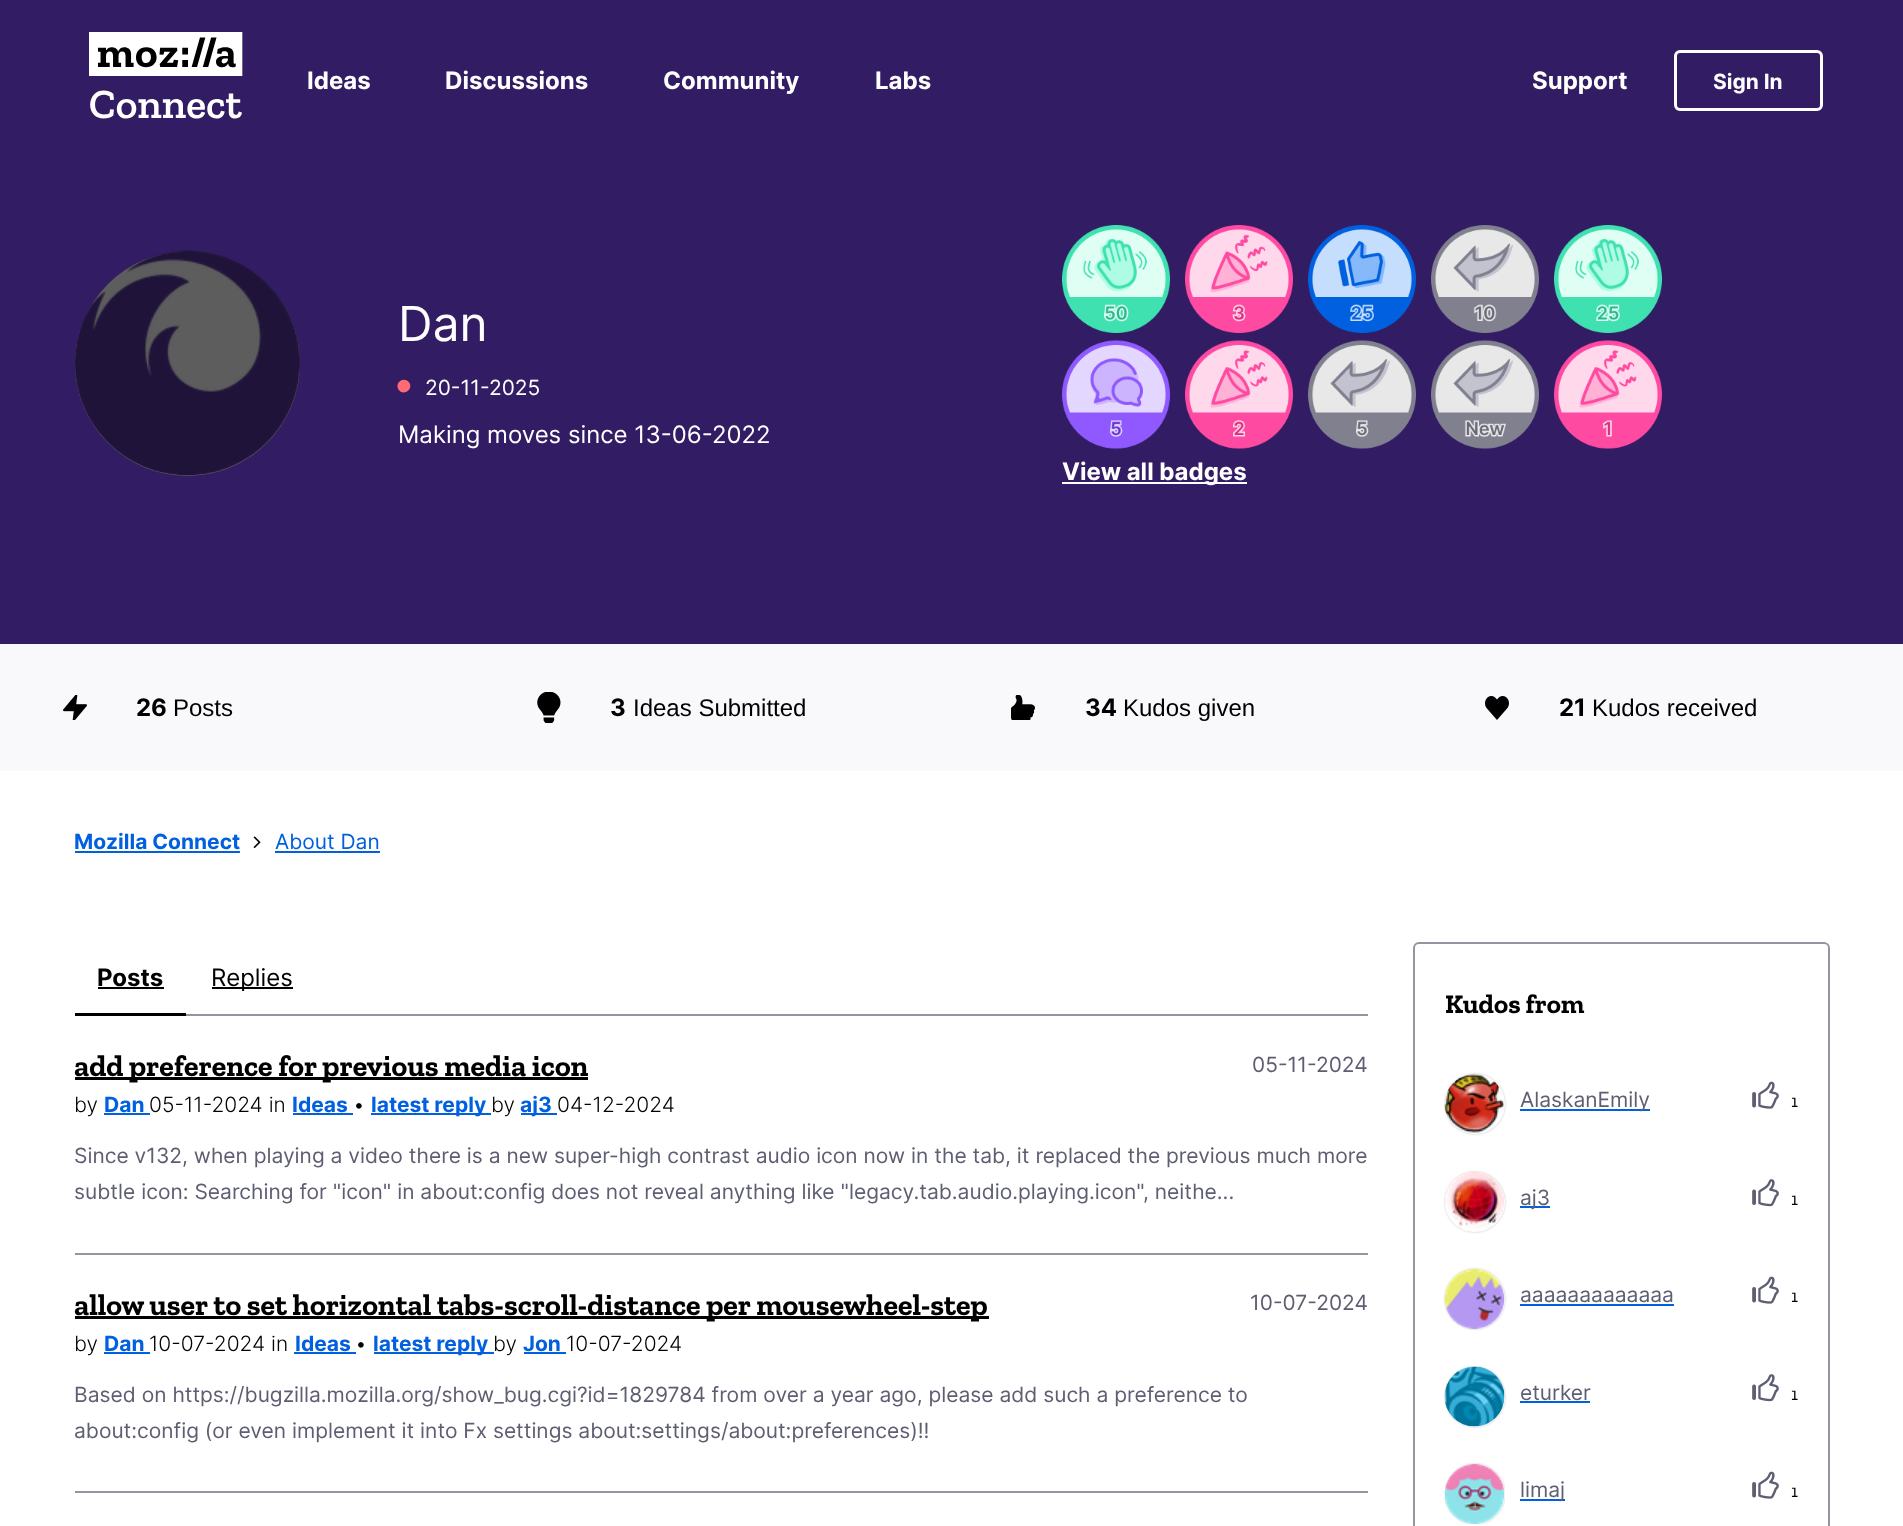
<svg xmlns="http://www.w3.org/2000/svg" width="1903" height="1526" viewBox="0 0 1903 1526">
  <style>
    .t1 { font: bold 24px Inter; fill: #fff; }
    .t2 { font: bold 21px Inter; fill: #fff; }
    .t3 { font: 48px Inter; fill: #fff; }
    .t4 { font: 21px Inter; fill: #fff; }
    .t5 { font: 24px Inter; fill: #fff; }
    .t6 { font: bold 24px Inter; fill: #000; }
    .t7 { font: 24px Liberation Sans; fill: #000; }
    .t8 { font: bold 21px Inter; fill: #0060df; }
    .t9 { font: 21px Inter; fill: #0060df; }
    .t10 { font: 24px Inter; fill: #000; }
    .t11 { font: bold 30px Zilla Slab; fill: #000; }
    .t12 { font: 300 21px Inter; fill: #000; }
    .t13 { font: 21px Inter; fill: #5e5e72; }
    .t14 { font: bold 27px Zilla Slab; fill: #000; }
    .t15 { font: 18px Zilla Slab; fill: #000; }
  </style>
  <defs>
    <clipPath id="clip1"><path d="M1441 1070H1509V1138H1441ZM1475 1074C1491.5 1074 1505 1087.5 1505 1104C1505 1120.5 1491.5 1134 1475 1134C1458.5 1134 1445 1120.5 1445 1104C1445 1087.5 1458.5 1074 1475 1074Z" clip-rule="evenodd"/></clipPath>
    <clipPath id="clip2"><path d="M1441 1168H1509V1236H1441ZM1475 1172C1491.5 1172 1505 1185.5 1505 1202C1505 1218.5 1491.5 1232 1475 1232C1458.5 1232 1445 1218.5 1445 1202C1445 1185.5 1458.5 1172 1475 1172Z" clip-rule="evenodd"/></clipPath>
    <clipPath id="clip3"><path d="M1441 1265H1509V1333H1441ZM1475 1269C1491.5 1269 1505 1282.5 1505 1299C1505 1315.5 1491.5 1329 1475 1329C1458.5 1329 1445 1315.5 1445 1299C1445 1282.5 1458.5 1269 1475 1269Z" clip-rule="evenodd"/></clipPath>
    <clipPath id="clip4"><path d="M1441 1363H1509V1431H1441ZM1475 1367C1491.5 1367 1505 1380.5 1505 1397C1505 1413.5 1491.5 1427 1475 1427C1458.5 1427 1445 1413.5 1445 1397C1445 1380.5 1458.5 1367 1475 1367Z" clip-rule="evenodd"/></clipPath>
    <clipPath id="clip5"><rect x="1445" y="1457" width="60" height="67"/></clipPath>
    <clipPath id="clip6"><path d="M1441 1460H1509V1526H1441ZM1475 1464C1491.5 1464 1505 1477.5 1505 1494C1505 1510.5 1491.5 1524 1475 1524C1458.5 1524 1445 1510.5 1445 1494C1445 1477.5 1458.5 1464 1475 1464Z" clip-rule="evenodd"/></clipPath>
  </defs>
  <rect width="100%" height="100%" fill="#fff"/>
  <rect x="0" y="0" width="1903" height="644" fill="#321c64"/>
  <image x="89" y="32" width="154" height="87" href="images/1.png"/>
  <text x="307" y="89" class="t1">Ideas</text>
  <text x="445" y="89" class="t1">Discussions</text>
  <text x="663" y="89" class="t1">Community</text>
  <text x="875" y="89" class="t1">Labs</text>
  <text x="1532" y="89" class="t1">Support</text>
  <rect x="1675.5" y="51.5" width="146" height="58" rx="4.5" fill="none" stroke="#fff" stroke-width="3"/>
  <text x="1713" y="89" class="t2">Sign In</text>
  <circle cx="187.5" cy="363.5" r="112.5" fill="#5d5d5d"/>
  <image x="75" y="250" width="225" height="226" href="images/2.png"/>
  <text x="398" y="341" class="t3">Dan</text>
  <path d="M409.5 383C413.5 390 402.5 396.5 398.5 389.5C394 382 405 375.5 409.5 383Z" fill="#ff6a75"/>
  <text x="425" y="395" class="t4">20-11-2025</text>
  <text x="398" y="443" class="t5">Making moves since 13-06-2022</text>
  <image x="1062" y="225" width="108" height="108" href="images/3.png"/>
  <image x="1185" y="225" width="108" height="108" href="images/4.png"/>
  <image x="1308" y="225" width="108" height="108" href="images/5.png"/>
  <image x="1431" y="225" width="108" height="108" href="images/6.png"/>
  <image x="1554" y="225" width="108" height="108" href="images/7.png"/>
  <image x="1062" y="340" width="108" height="109" href="images/8.png"/>
  <image x="1185" y="340" width="108" height="109" href="images/9.png"/>
  <image x="1308" y="340" width="108" height="109" href="images/10.png"/>
  <image x="1431" y="340" width="108" height="109" href="images/11.png"/>
  <image x="1554" y="340" width="108" height="109" href="images/12.png"/>
  <rect x="1062" y="482" width="185" height="2" fill="#fff"/>
  <text x="1062" y="480" class="t1">View all badges</text>
  <rect x="0" y="644" width="1903" height="127" fill="#f9f9fb"/>
  <image x="63" y="695" width="24" height="25" href="images/13.png"/>
  <text x="136" y="716" class="t6">26</text>
  <text x="173" y="716" class="t7">Posts</text>
  <image x="537" y="692" width="24" height="31" href="images/14.png"/>
  <text x="610" y="716" class="t6">3</text>
  <text x="633" y="716" class="t7">Ideas Submitted</text>
  <image x="1011" y="695" width="24" height="25" href="images/15.png"/>
  <text x="1085" y="716" class="t6">34</text>
  <text x="1123" y="716" class="t7">Kudos given</text>
  <image x="1485" y="696" width="24" height="24" href="images/16.png"/>
  <text x="1559" y="716" class="t6">21</text>
  <text x="1592" y="716" class="t7">Kudos received</text>
  <text x="74" y="849" class="t8">Mozilla Connect</text>
  <rect x="75" y="851" width="165" height="2" fill="#0060df"/>
  <image x="253" y="836" width="8" height="12" href="images/17.png"/>
  <text x="275" y="849" class="t9">About Dan</text>
  <rect x="275" y="851" width="105" height="2" fill="#0060df"/>
  <rect x="186" y="1014" width="1182" height="2" fill="#9595a2"/>
  <rect x="75" y="1013" width="111" height="3" fill="#000"/>
  <text x="97" y="986" class="t6">Posts</text>
  <rect x="98" y="987" width="66" height="2" fill="#000"/>
  <rect x="212" y="987" width="81" height="2" fill="#000"/>
  <text x="211" y="986" class="t10">Replies</text>
  <rect x="75" y="1253" width="1293" height="2" fill="#9595a2"/>
  <rect x="75" y="1077" width="513" height="3" fill="#000"/>
  <text x="74" y="1076" class="t11">add preference for previous media icon</text>
  <text x="74" y="1112" class="t12">by</text>
  <text x="104" y="1112" class="t8">Dan</text>
  <rect x="104" y="1113" width="46" height="2" fill="#0060df"/>
  <text x="149" y="1112" class="t12">05-11-2024 in</text>
  <text x="292" y="1112" class="t8">Ideas</text>
  <rect x="293" y="1113" width="60" height="2" fill="#0060df"/>
  <text x="353" y="1112" class="t12">•</text>
  <rect x="371" y="1113" width="120" height="2" fill="#0060df"/>
  <text x="371" y="1112" class="t8">latest reply</text>
  <text x="491" y="1112" class="t12">by</text>
  <rect x="521" y="1113" width="36" height="2" fill="#0060df"/>
  <text x="520" y="1112" class="t8">aj3</text>
  <text x="557" y="1112" class="t12">04-12-2024</text>
  <text x="1252" y="1072" class="t13">05-11-2024</text>
  <text x="74" y="1163" class="t13">Since v132, when playing a video there is a new super-high contrast audio icon now in the tab, it replaced the previous much more</text>
  <text x="74" y="1199" class="t13">subtle icon: Searching for "icon" in about:config does not reveal anything like "legacy.tab.audio.playing.icon", neithe...</text>
  <rect x="75" y="1491" width="1293" height="2" fill="#9595a2"/>
  <rect x="75" y="1316" width="914" height="3" fill="#000"/>
  <text x="74" y="1315" class="t11">allow user to set horizontal tabs-scroll-distance per mousewheel-step</text>
  <text x="74" y="1351" class="t12">by</text>
  <text x="104" y="1351" class="t8">Dan</text>
  <rect x="104" y="1352" width="46" height="2" fill="#0060df"/>
  <text x="149" y="1351" class="t12">10-07-2024 in</text>
  <text x="295" y="1351" class="t8">Ideas</text>
  <rect x="294" y="1352" width="62" height="2" fill="#0060df"/>
  <text x="355" y="1351" class="t12">•</text>
  <rect x="374" y="1352" width="120" height="2" fill="#0060df"/>
  <text x="373" y="1351" class="t8">latest reply</text>
  <text x="493" y="1351" class="t12">by</text>
  <text x="523" y="1351" class="t8">Jon</text>
  <rect x="524" y="1352" width="42" height="2" fill="#0060df"/>
  <text x="566" y="1351" class="t12">10-07-2024</text>
  <text x="1250" y="1310" class="t13">10-07-2024</text>
  <text x="74" y="1402" class="t13">Based on https://bugzilla.mozilla.org/show_bug.cgi?id=1829784 from over a year ago, please add such a preference to</text>
  <text x="74" y="1438" class="t13">about:config (or even implement it into Fx settings about:settings/about:preferences)!!</text>
  <rect x="1414" y="943" width="415" height="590" rx="5" fill="none" stroke="#9595a2" stroke-width="2"/>
  <text x="1445" y="1013" class="t14">Kudos from</text>
  <g clip-path="url(#clip1)">
    <rect x="1445" y="1074" width="60" height="60" rx="30" fill="#c4c4c4" filter="blur(1px)"/>
  </g>
  <image x="1444" y="1074" width="61" height="59" href="images/18.png"/>
  <rect x="1520" y="1109" width="130" height="2" fill="#0060df"/>
  <text x="1520" y="1107" class="t13">AlaskanEmily</text>
  <image x="1752" y="1081" width="27" height="28" href="images/19.png"/>
  <text x="1791" y="1107" class="t15">1</text>
  <g clip-path="url(#clip2)">
    <rect x="1445" y="1172" width="60" height="60" rx="30" fill="#c4c4c4" filter="blur(1px)"/>
  </g>
  <image x="1445" y="1171" width="60" height="61" href="images/20.png"/>
  <rect x="1520" y="1206" width="30" height="2" fill="#0060df"/>
  <text x="1520" y="1205" class="t13">aj3</text>
  <image x="1752" y="1179" width="27" height="28" href="images/21.png"/>
  <text x="1791" y="1205" class="t15">1</text>
  <g clip-path="url(#clip3)">
    <rect x="1445" y="1269" width="60" height="60" rx="30" fill="#c4c4c4" filter="blur(1px)"/>
  </g>
  <image x="1444" y="1269" width="61" height="60" href="images/22.png"/>
  <text x="1520" y="1302" class="t13">aaaaaaaaaaaaa</text>
  <rect x="1520" y="1304" width="154" height="2" fill="#0060df"/>
  <image x="1752" y="1276" width="27" height="28" href="images/19.png"/>
  <text x="1791" y="1302" class="t15">1</text>
  <g clip-path="url(#clip4)">
    <rect x="1445" y="1367" width="60" height="60" rx="30" fill="#c4c4c4" filter="blur(1px)"/>
  </g>
  <image x="1444" y="1366" width="61" height="61" href="images/23.png"/>
  <text x="1520" y="1400" class="t13">eturker</text>
  <rect x="1520" y="1401" width="70" height="2" fill="#0060df"/>
  <image x="1752" y="1374" width="27" height="28" href="images/21.png"/>
  <text x="1791" y="1400" class="t15">1</text>
  <g clip-path="url(#clip5)">
    <g clip-path="url(#clip6)">
      <rect x="1445" y="1464" width="60" height="60" rx="30" fill="#c4c4c4" filter="blur(1px)"/>
    </g>
  </g>
  <image x="1444" y="1464" width="61" height="60" href="images/24.png"/>
  <rect x="1520" y="1499" width="45" height="2" fill="#0060df"/>
  <text x="1520" y="1497" class="t13">limaj</text>
  <image x="1752" y="1471" width="27" height="28" href="images/19.png"/>
  <text x="1791" y="1497" class="t15">1</text>
</svg>
